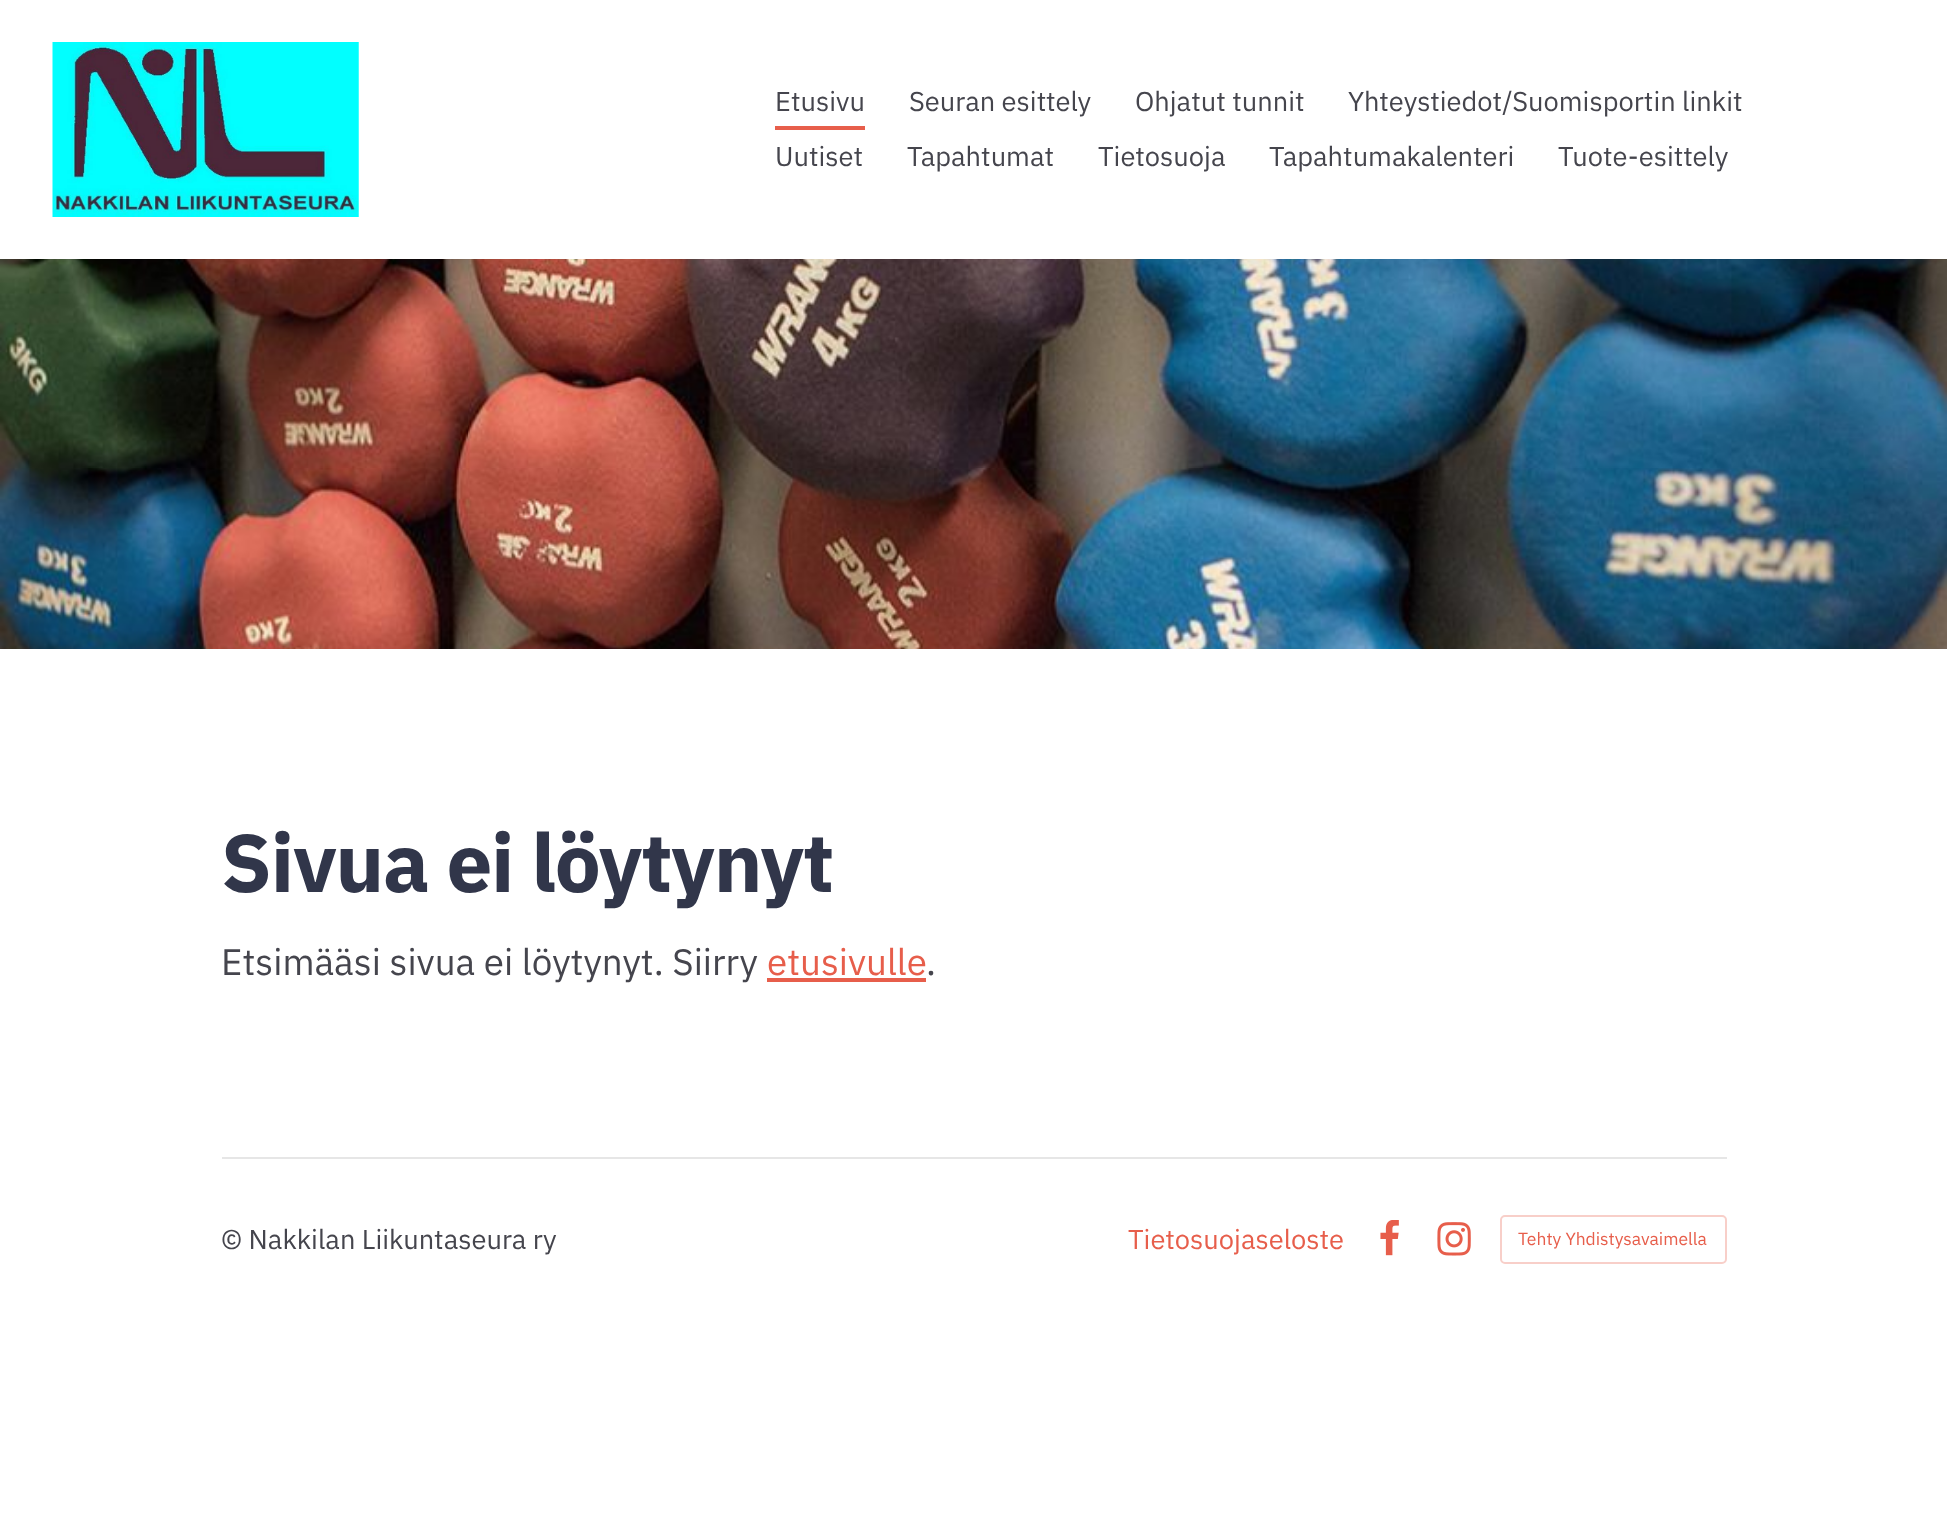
<svg xmlns="http://www.w3.org/2000/svg" width="1947" height="1540" viewBox="0 0 1947 1540">
  <style>
    .t1 { font: 27.25px IBM Plex Sans; fill: #45454d; }
    .t2 { font: bold 81.75px IBM Plex Sans; letter-spacing: -1.25px; fill: #31364a; }
    .t3 { font: 36.75px IBM Plex Sans; fill: #45454d; }
    .t4 { font: 36.75px IBM Plex Sans; fill: #e75e4b; }
    .t5 { font: 27.25px IBM Plex Sans; fill: #e75e4b; }
    .t6 { font: 17.5px IBM Plex Sans; fill: #e75e4b; }
  </style>
  <rect width="100%" height="100%" fill="#fff"/>
  <image x="0" y="259" width="1947" height="390" href="images/1.png"/>
  <image x="52" y="42" width="307" height="175" href="images/2.png"/>
  <text x="775" y="111" class="t1">Etusivu</text>
  <rect x="775" y="126" width="90" height="4" fill="#e75e4b"/>
  <text x="909" y="111" class="t1">Seuran esittely</text>
  <text x="1135" y="111" class="t1">Ohjatut tunnit</text>
  <text x="1348" y="111" class="t1">Yhteystiedot/Suomisportin linkit</text>
  <text x="775" y="166" class="t1">Uutiset</text>
  <text x="907" y="166" class="t1">Tapahtumat</text>
  <text x="1098" y="166" class="t1">Tietosuoja</text>
  <text x="1269" y="166" class="t1">Tapahtumakalenteri</text>
  <text x="1558" y="166" class="t1">Tuote-esittely</text>
  <text x="221" y="892" class="t2">Sivua ei löytynyt</text>
  <text x="221" y="975" class="t3">Etsimääsi sivua ei löytynyt. Siirry</text>
  <text x="767" y="975" class="t4">etusivulle</text>
  <rect x="767" y="978" width="159" height="4" fill="#e75e4b"/>
  <text x="926" y="975" class="t3">.</text>
  <rect x="222" y="1157" width="1505" height="2" fill="#e6e6e6"/>
  <text x="221" y="1249" class="t1">© Nakkilan Liikuntaseura ry</text>
  <text x="1128" y="1249" class="t5">Tietosuojaseloste</text>
  <image x="1380" y="1220" width="19" height="36" href="images/3.png"/>
  <image x="1437" y="1222" width="34" height="34" href="images/4.png"/>
  <rect x="1501" y="1216" width="225" height="47" rx="4" fill="none" stroke="#f8cfc9" stroke-width="2"/>
  <text x="1518" y="1245" class="t6">Tehty Yhdistysavaimella</text>
</svg>
